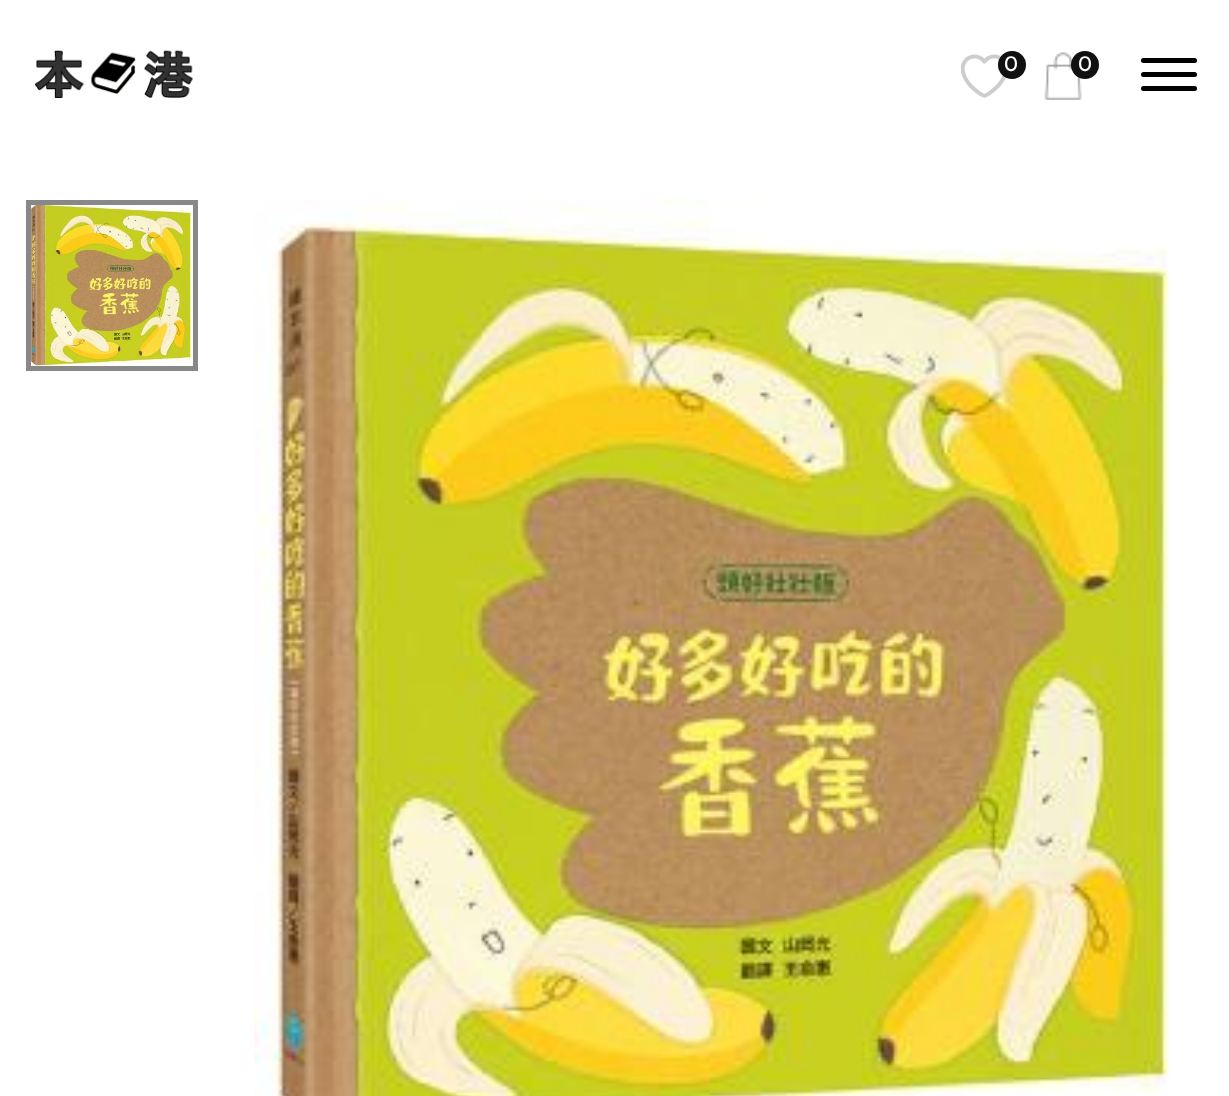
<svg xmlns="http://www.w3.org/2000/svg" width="1229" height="1096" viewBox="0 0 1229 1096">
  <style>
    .t1 { font: 500 21px Montserrat; fill: #fff; }
  </style>
  <rect width="100%" height="100%" fill="#fff"/>
  <image x="35" y="50" width="158" height="48" href="images/1.png"/>
  <image x="961" y="54" width="45" height="44" href="images/2.png"/>
  <circle cx="1012" cy="65" r="14" fill="#111"/>
  <text x="1004" y="71" class="t1">0</text>
  <image x="1044" y="52" width="38" height="48" href="images/3.png"/>
  <circle cx="1085" cy="65" r="14" fill="#111"/>
  <text x="1078" y="71" class="t1">0</text>
  <rect x="1141" y="72" width="56" height="5" rx="2.5" fill="#000"/>
  <rect x="1141" y="58" width="56" height="5" rx="2.5" fill="#000"/>
  <rect x="1141" y="86" width="56" height="5" rx="2.5" fill="#000"/>
  <image x="26" y="199" width="166" height="167" href="images/4.png"/>
  <rect x="28.5" y="202.5" width="167" height="166" fill="none" stroke="#888" stroke-width="5"/>
  <image x="254" y="200" width="916" height="896" href="images/5.png"/>
</svg>
